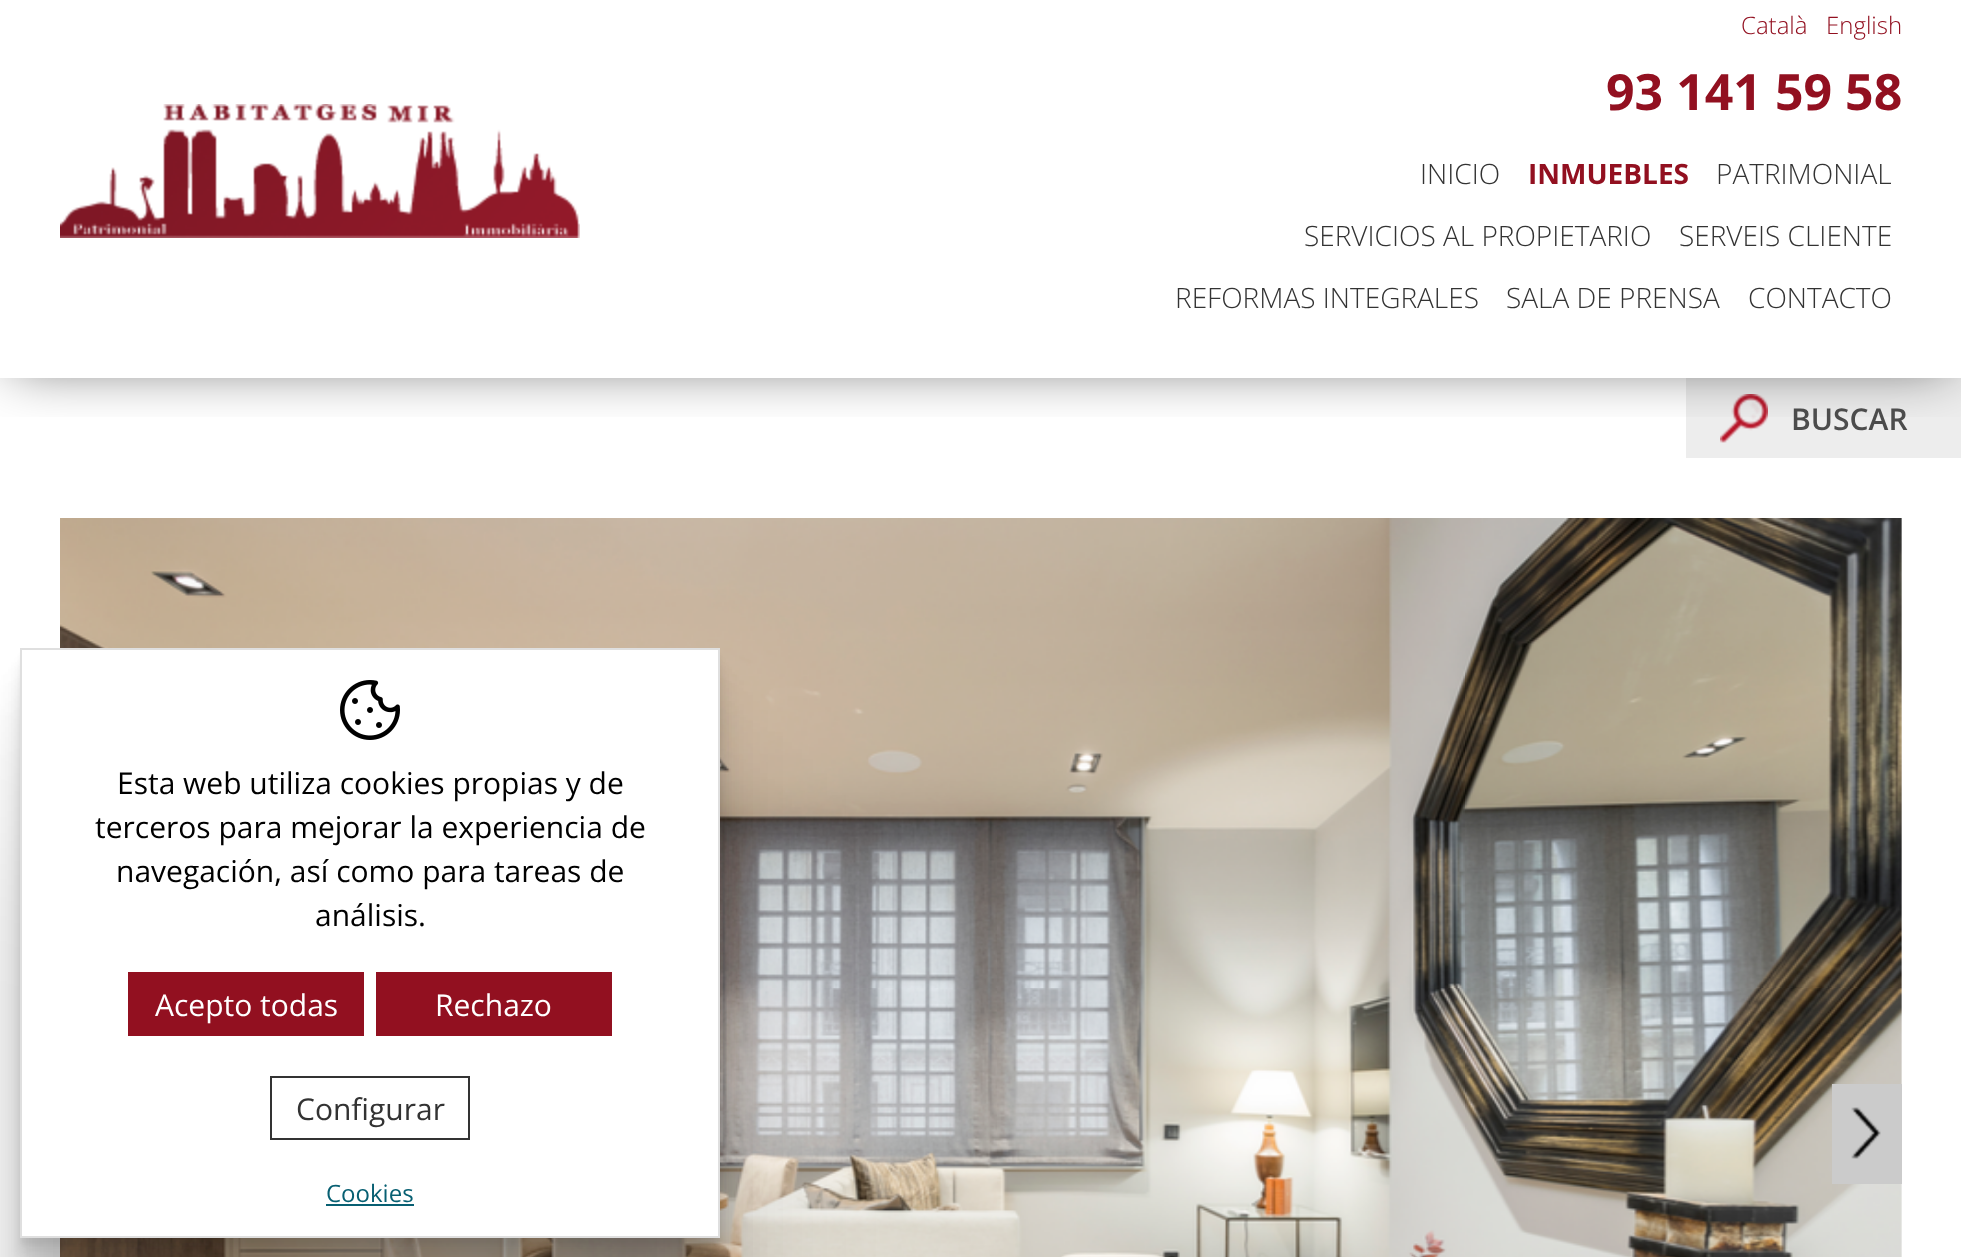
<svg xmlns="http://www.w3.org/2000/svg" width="1961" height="1257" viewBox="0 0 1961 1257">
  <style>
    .t1 { font: 300 24px Open Sans; fill: #921020; }
    .t2 { font: bold 50px Open Sans; fill: #921020; }
    .t3 { font: 300 28px Open Sans; fill: #333; }
    .t4 { font: bold 28px Open Sans; fill: #921020; }
    .t5 { font: 600 30px Open Sans; fill: #4c4c4c; }
    .t6 { font: 30px Open Sans; fill: #000; }
    .t7 { font: 30px Open Sans; fill: #fff; }
    .t8 { font: 30px Open Sans; fill: #333; }
    .t9 { font: 24px Open Sans; fill: #075f72; }
  </style>
  <defs>
    <clipPath id="clip1"><rect x="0" y="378" width="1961" height="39"/></clipPath>
  </defs>
  <rect width="100%" height="100%" fill="#fff"/>
  <rect x="1686" y="378" width="275" height="80" fill="#ededed"/>
  <image x="1720" y="394" width="48" height="49" href="images/2.png"/>
  <g clip-path="url(#clip1)">
    <rect x="12" y="12" width="1938" height="354" fill="#00000099" filter="blur(28px)"/>
  </g>
  <image x="60" y="104" width="520" height="134" href="images/1.png"/>
  <text x="1741" y="34" class="t1">Català</text>
  <text x="1826" y="34" class="t1">English</text>
  <text x="1606" y="110" class="t2">93 141 59 58</text>
  <text x="1420" y="184" class="t3">INICIO</text>
  <text x="1528" y="184" class="t4">INMUEBLES</text>
  <text x="1716" y="184" class="t3">PATRIMONIAL</text>
  <text x="1304" y="246" class="t3">SERVICIOS AL PROPIETARIO</text>
  <text x="1679" y="246" class="t3">SERVEIS CLIENTE</text>
  <text x="1175" y="308" class="t3">REFORMAS INTEGRALES</text>
  <text x="1506" y="308" class="t3">SALA DE PRENSA</text>
  <text x="1748" y="308" class="t3">CONTACTO</text>
  <text x="1791" y="430" class="t5">BUSCAR</text>
  <image x="60" y="518" width="1842" height="739" href="images/3.png"/>
  <rect x="1832" y="1084" width="70" height="100" fill="#cbcbcb"/>
  <image x="1851" y="1107" width="30" height="52" href="images/4.png"/>
  <rect x="20" y="848" width="700" height="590" fill="#0000001f" filter="blur(80px)"/>
  <rect x="20" y="732" width="700" height="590" fill="#00000017" filter="blur(33.5px)"/>
  <rect x="20" y="692" width="700" height="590" fill="#00000012" filter="blur(18px)"/>
  <rect x="20" y="674" width="700" height="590" fill="#0000000f" filter="blur(10px)"/>
  <rect x="20" y="662" width="700" height="590" fill="#0000000d" filter="blur(5.5px)"/>
  <rect x="20" y="654" width="700" height="590" fill="#0000000a" filter="blur(2px)"/>
  <rect x="21" y="649" width="698" height="588" fill="#fff" stroke="#dfdfdf" stroke-width="2"/>
  <image x="340" y="680" width="60" height="60" href="images/5.png"/>
  <text x="117" y="794" class="t6">Esta web utiliza cookies propias y de</text>
  <text x="95" y="838" class="t6">terceros para mejorar la experiencia de</text>
  <text x="116" y="882" class="t6">navegación, así como para tareas de</text>
  <text x="315" y="926" class="t6">análisis.</text>
  <rect x="128" y="972" width="236" height="64" fill="#921020"/>
  <text x="155" y="1016" class="t7">Acepto todas</text>
  <rect x="376" y="972" width="236" height="64" fill="#921020"/>
  <text x="435" y="1016" class="t7">Rechazo</text>
  <rect x="271" y="1077" width="198" height="62" fill="none" stroke="#333" stroke-width="2"/>
  <text x="296" y="1120" class="t8">Configurar</text>
  <text x="326" y="1202" class="t9">Cookies</text>
  <rect x="326" y="1204" width="88" height="2" fill="#075f72"/>
</svg>
